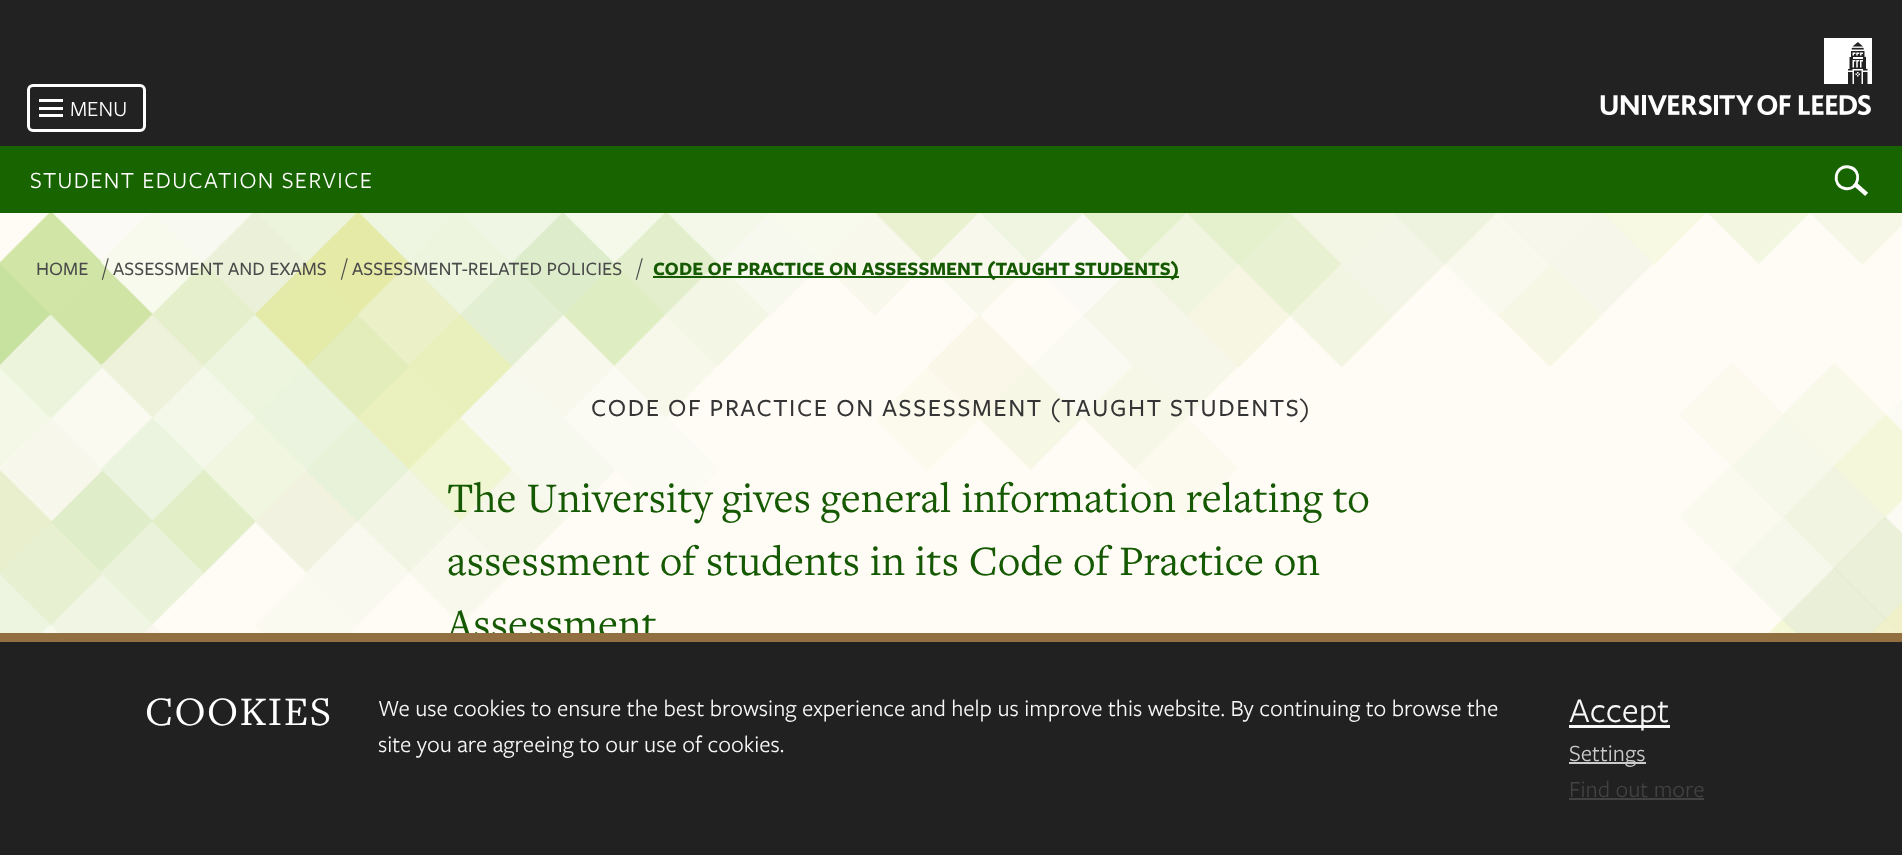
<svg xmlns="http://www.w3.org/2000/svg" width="1902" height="855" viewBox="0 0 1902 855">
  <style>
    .t1 { font: 22.5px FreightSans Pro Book; fill: #fff; }
    .t2 { font: 24px FreightSans Pro Book; letter-spacing: 1.4px; fill: #fff; }
    .t3 { font: 500 19.5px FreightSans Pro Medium; fill: #4a4a4a; }
    .t4 { font: 24px FreightSans Pro Book; fill: #4a4a4a; }
    .t5 { font: bold 19.5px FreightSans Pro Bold; fill: #155902; }
    .t6 { font: 500 25.5px FreightSans Pro Medium; letter-spacing: 1.6px; fill: #353535; }
    .t7 { font: 43.5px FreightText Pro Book; fill: #155902; }
    .t8 { font: 42px FreightText Pro Book; letter-spacing: 1.5px; fill: #fff; }
    .t9 { font: 24px FreightSans Pro Book; fill: #f7f7f7; }
    .t10 { font: 36px FreightSans Pro Book; fill: #f7f7f7; }
    .t11 { font: 24px FreightSans Pro Book; fill: #ccc; }
    .t12 { font: 24px FreightSans Pro Book; fill: #424242; }
  </style>
  <rect width="100%" height="100%" fill="#fffcf5"/>
  <rect x="0" y="0" width="1902" height="146" fill="#222"/>
  <image x="1824" y="38" width="48" height="46" href="images/1.png"/>
  <image x="1600" y="95" width="271" height="21" href="images/2.png"/>
  <rect x="28.5" y="85.5" width="116" height="45" rx="4.5" fill="none" stroke="#fff" stroke-width="3"/>
  <rect x="39" y="99" width="24" height="3" fill="#fff"/>
  <rect x="39" y="107" width="24" height="3" fill="#fff"/>
  <rect x="39" y="114" width="24" height="3" fill="#fff"/>
  <text x="70" y="116" class="t1">MENU</text>
  <rect x="0" y="146" width="1902" height="67" fill="#176400"/>
  <text x="30" y="188" class="t2">STUDENT EDUCATION SERVICE</text>
  <path d="M1849 167C1863 169.5 1859 191 1845 188.5C1831 186 1834.5 164.5 1849 167Z" fill="none" stroke="#fff" stroke-width="2.9"/>
  <path d="M1856 185L1865 193" fill="none" stroke="#fff" stroke-width="4.4" stroke-linecap="square"/>
  <image x="0" y="213" width="1902" height="420" href="images/3.png"/>
  <text x="36" y="275" class="t3">HOME</text>
  <text x="103" y="275" class="t4">/</text>
  <text x="113" y="275" class="t3">ASSESSMENT AND EXAMS</text>
  <text x="342" y="275" class="t4">/</text>
  <text x="352" y="275" class="t3">ASSESSMENT-RELATED POLICIES</text>
  <text x="637" y="275" class="t4">/</text>
  <rect x="653" y="276" width="526" height="2" fill="#155902"/>
  <text x="653" y="275" class="t5">CODE OF PRACTICE ON ASSESSMENT (TAUGHT STUDENTS)</text>
  <text x="591" y="416" class="t6">CODE OF PRACTICE ON ASSESSMENT (TAUGHT STUDENTS)</text>
  <text x="447" y="512" class="t7">The University gives general information relating to</text>
  <text x="447" y="575" class="t7">assessment of students in its Code of Practice on</text>
  <text x="447" y="638" class="t7">Assessment</text>
  <rect x="0" y="642" width="1902" height="213" fill="#212121"/>
  <rect x="0" y="633" width="1902" height="9" fill="#916f40"/>
  <text x="145" y="725" class="t8">COOKIES</text>
  <text x="378" y="716" class="t9">We use cookies to ensure the best browsing experience and help us improve this website. By continuing to browse the</text>
  <text x="378" y="752" class="t9">site you are agreeing to our use of cookies.</text>
  <rect x="1569" y="725" width="101" height="3" fill="#f7f7f7"/>
  <text x="1569" y="722" class="t10">Accept</text>
  <rect x="1569" y="762" width="77" height="2" fill="#ccc"/>
  <text x="1569" y="761" class="t11">Settings</text>
  <text x="1569" y="797" class="t12">Find out more</text>
  <rect x="1569" y="798" width="135" height="2" fill="#424242"/>
</svg>
